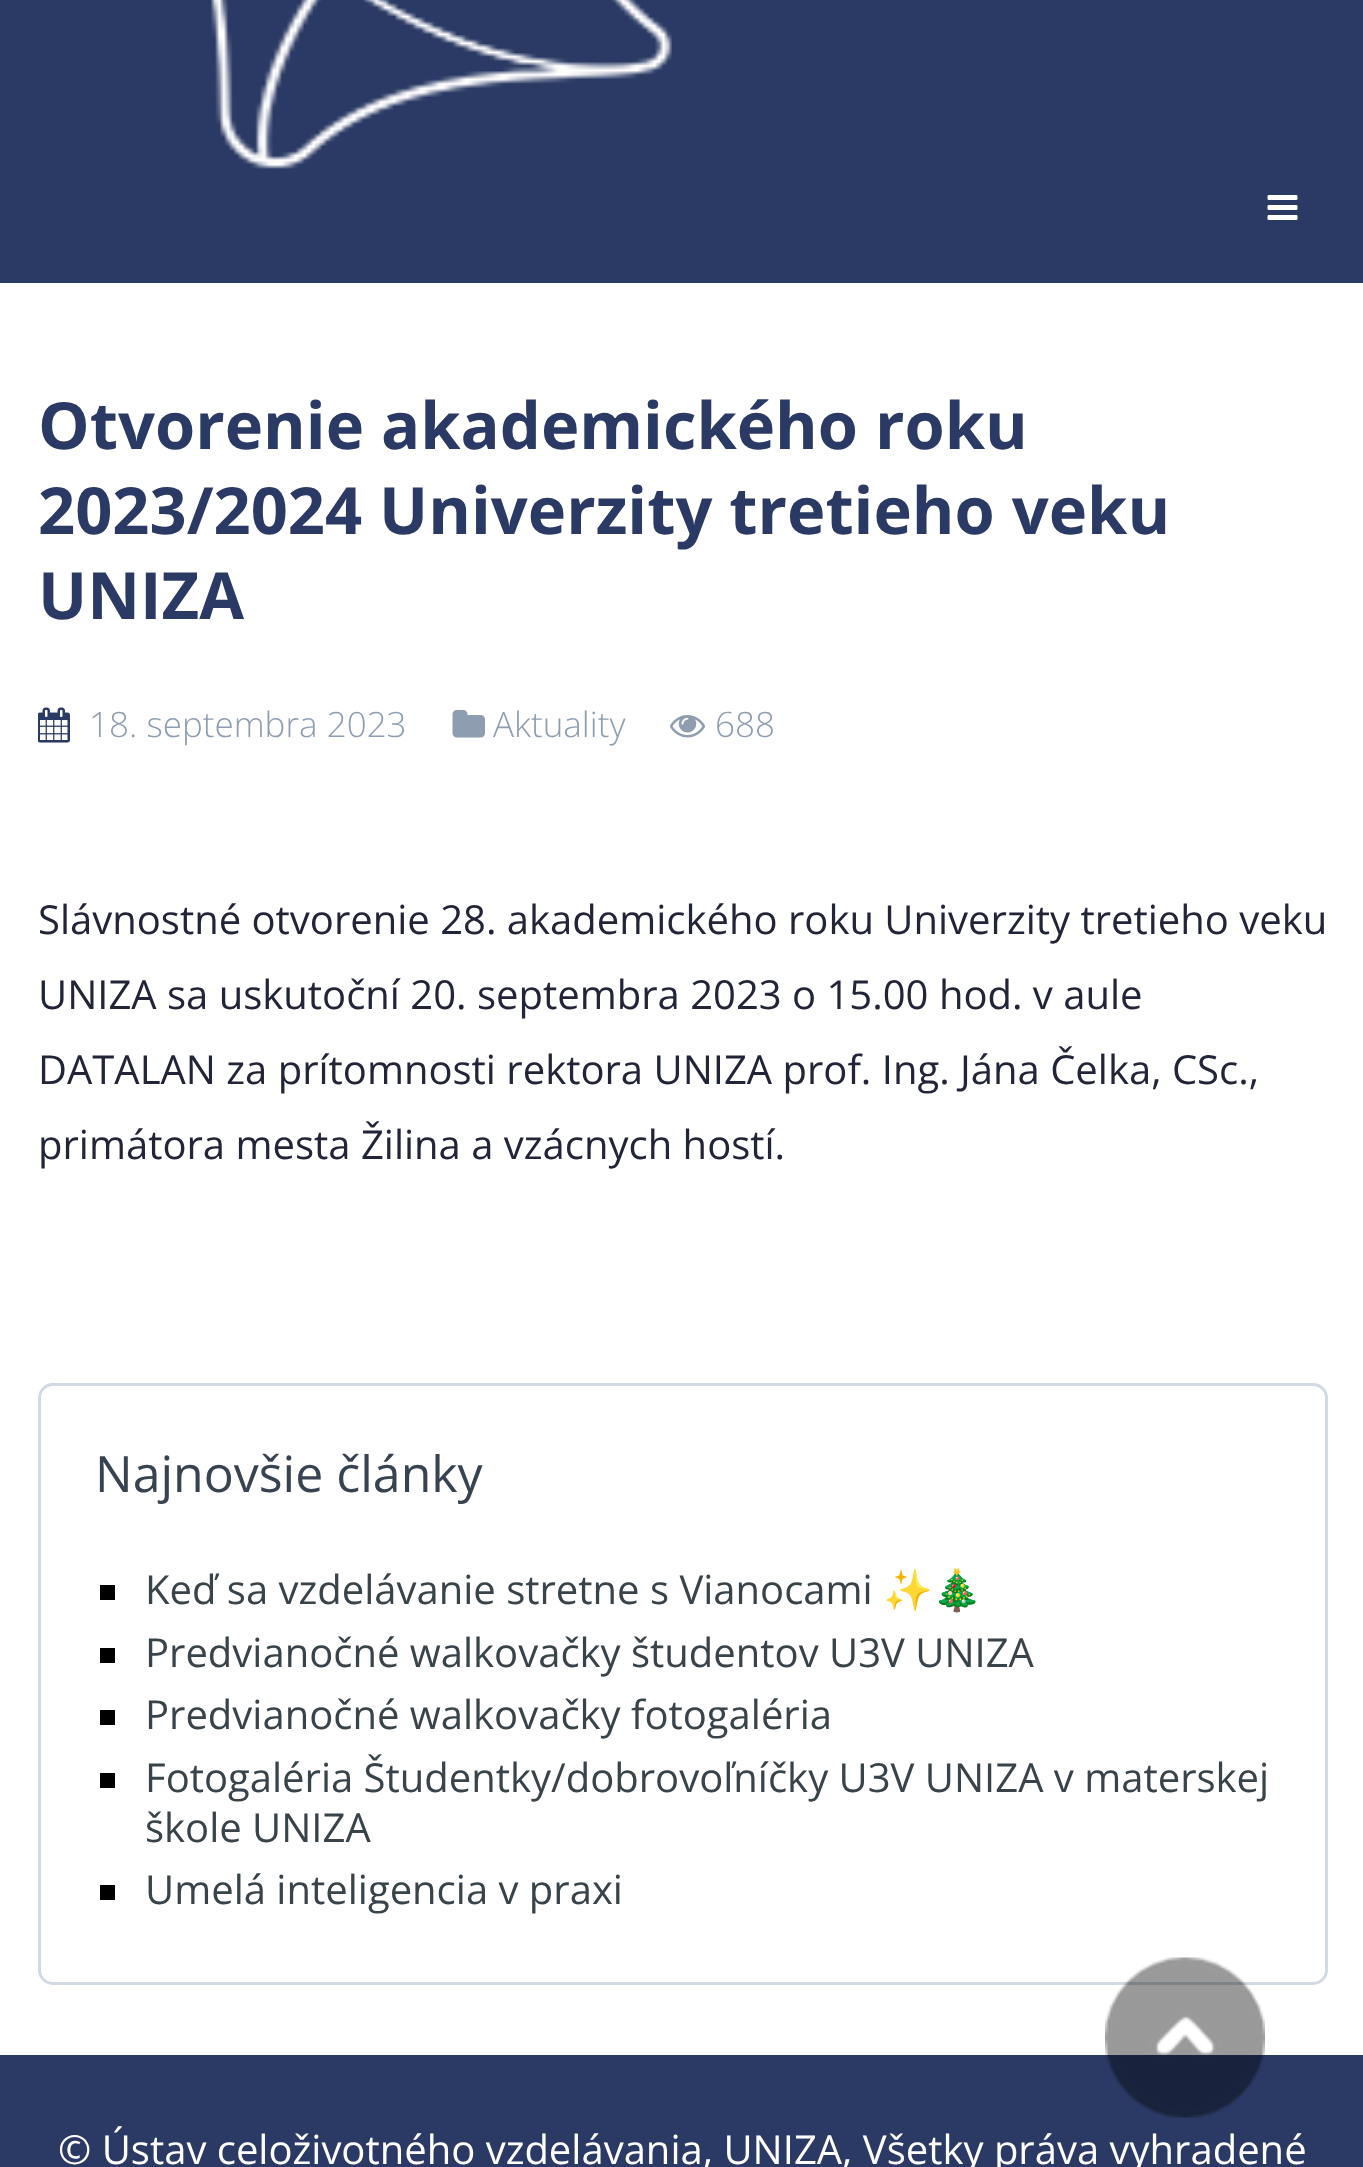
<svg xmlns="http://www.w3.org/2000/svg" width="1363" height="2167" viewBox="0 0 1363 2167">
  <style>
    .t1 { font: bold 65px Open Sans; fill: #2b3a64; }
    .t2 { font: 300 35px Open Sans; fill: #8e9eb0; }
    .t3 { font: 40px Open Sans; fill: #222538; }
    .t4 { font: 50px Open Sans; fill: #384351; }
    .t5 { font: 40px Open Sans; fill: #38434a; }
    .t6 { font: 40px Noto Color Emoji; fill: #38434a; }
    .t7 { font: 40px Open Sans; fill: #fff; }
  </style>
  <rect width="100%" height="100%" fill="#fff"/>
  <rect x="0" y="0" width="1363" height="283" fill="#2b3a64"/>
  <image x="211" y="0" width="461" height="169" href="images/1.png"/>
  <image x="1267" y="195" width="31" height="25" href="images/2.png"/>
  <text x="38" y="449" class="t1">Otvorenie akademického roku</text>
  <text x="38" y="534" class="t1">2023/2024 Univerzity tretieho veku</text>
  <text x="38" y="619" class="t1">UNIZA</text>
  <image x="38" y="707" width="32" height="36" href="images/3.png"/>
  <text x="89" y="737" class="t2">18. septembra 2023</text>
  <image x="452" y="710" width="33" height="28" href="images/4.png"/>
  <text x="493" y="737" class="t2">Aktuality</text>
  <image x="670" y="715" width="35" height="23" href="images/5.png"/>
  <text x="715" y="737" class="t2">688</text>
  <text x="38" y="934" class="t3">Slávnostné otvorenie 28. akademického roku Univerzity tretieho veku</text>
  <text x="38" y="1009" class="t3">UNIZA sa uskutoční 20. septembra 2023 o 15.00 hod. v aule</text>
  <text x="38" y="1084" class="t3">DATALAN za prítomnosti rektora UNIZA prof. Ing. Jána Čelka, CSc.,</text>
  <text x="38" y="1159" class="t3">primátora mesta Žilina a vzácnych hostí.</text>
  <rect x="39.5" y="1384.5" width="1287" height="599" rx="13.5" fill="none" stroke="#d1d9e2" stroke-width="3"/>
  <text x="95" y="1492" class="t4">Najnovšie články</text>
  <rect x="100" y="1585" width="15" height="15" fill="#000"/>
  <text x="145" y="1604" class="t5">Keď sa vzdelávanie stretne s Vianocami</text>
  <text x="883" y="1604" class="t6">✨🎄</text>
  <rect x="100" y="1648" width="15" height="15" fill="#000"/>
  <text x="145" y="1667" class="t5">Predvianočné walkovačky študentov U3V UNIZA</text>
  <rect x="100" y="1710" width="15" height="15" fill="#000"/>
  <text x="145" y="1729" class="t5">Predvianočné walkovačky fotogaléria</text>
  <rect x="100" y="1773" width="15" height="15" fill="#000"/>
  <text x="145" y="1792" class="t5">Fotogaléria Študentky/dobrovoľníčky U3V UNIZA v materskej</text>
  <text x="145" y="1842" class="t5">škole UNIZA</text>
  <rect x="100" y="1885" width="15" height="15" fill="#000"/>
  <text x="145" y="1904" class="t5">Umelá inteligencia v praxi</text>
  <rect x="0" y="2055" width="1363" height="112" fill="#2b3a64"/>
  <text x="58" y="2164" class="t7">© Ústav celoživotného vzdelávania, UNIZA, Všetky práva vyhradené</text>
  <image x="1105" y="1957" width="160" height="161" href="images/6.png"/>
</svg>
